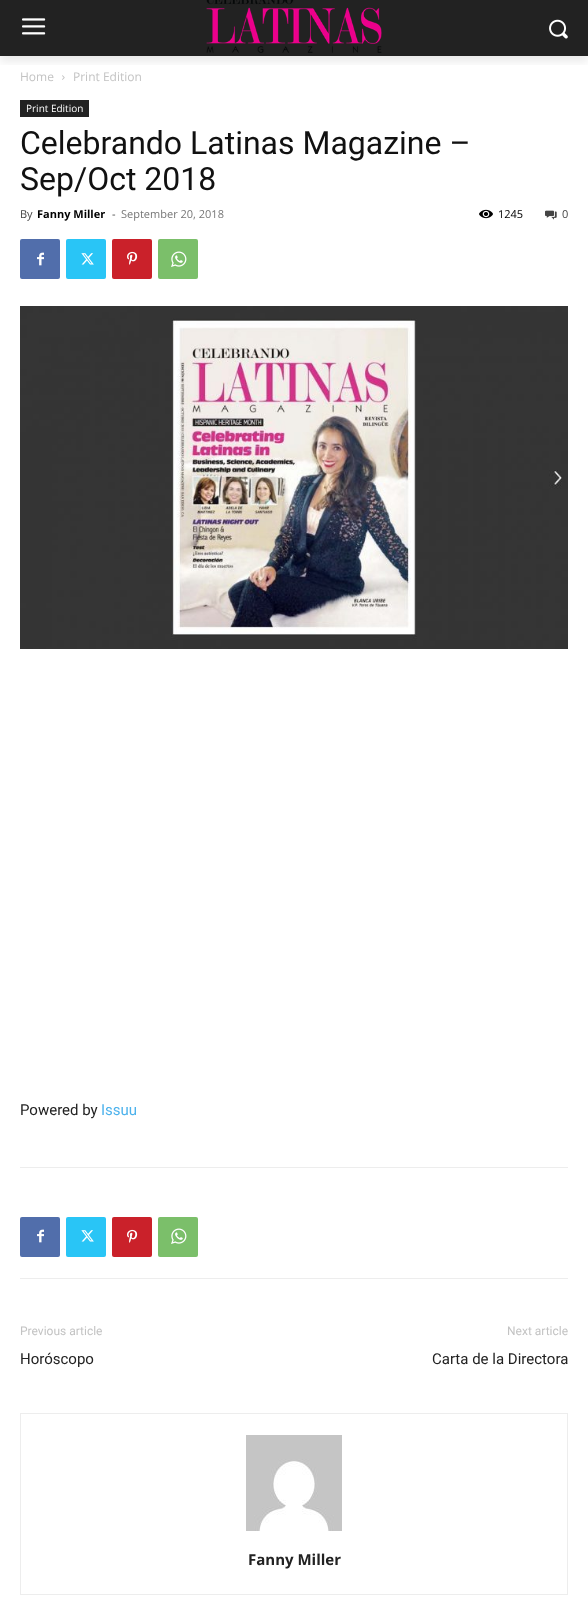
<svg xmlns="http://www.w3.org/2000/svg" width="588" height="1603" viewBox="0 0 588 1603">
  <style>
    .t1 { font: 12px Open Sans; fill: #c3c3c3; }
    .t2 { font: 10px Open Sans; fill: #fff; }
    .t3 { font: 32px Roboto; fill: #111; }
    .t4 { font: 11px Open Sans; fill: #444; }
    .t5 { font: bold 11px Open Sans; fill: #000; }
    .t6 { font: 11px Open Sans; fill: #767676; }
    .t7 { font: 11px Open Sans; fill: #000; }
    .t8 { font: 15px Roboto; fill: #222; }
    .t9 { font: 15px Roboto; fill: #4db2ec; }
    .t10 { font: 12px Roboto; fill: #c3c3c3; }
    .t11 { font: bold 15px Open Sans; fill: #222; }
  </style>
  <defs>
    <clipPath id="clip1"><rect x="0" y="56" width="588" height="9"/></clipPath>
  </defs>
  <rect width="100%" height="100%" fill="#fff"/>
  <rect x="0" y="0" width="588" height="56" fill="#222"/>
  <image x="22" y="18" width="24" height="17" href="images/1.png"/>
  <image x="206" y="0" width="176" height="53" href="images/2.png"/>
  <image x="549" y="19" width="19" height="20" href="images/3.png"/>
  <g clip-path="url(#clip1)">
    <rect x="0" y="6" width="588" height="56" fill="#00000014" filter="blur(4px)"/>
  </g>
  <text x="20" y="81" class="t1">Home</text>
  <image x="62" y="75" width="3" height="5" href="images/4.png"/>
  <text x="73" y="81" class="t1">Print Edition</text>
  <rect x="20" y="100" width="69" height="17" fill="#222"/>
  <text x="26" y="112" class="t2">Print Edition</text>
  <text x="20" y="154" class="t3">Celebrando Latinas Magazine –</text>
  <text x="20" y="190" class="t3">Sep/Oct 2018</text>
  <text x="20" y="218" class="t4">By</text>
  <text x="37" y="218" class="t5">Fanny Miller</text>
  <text x="112" y="218" class="t4">-</text>
  <text x="121" y="218" class="t6">September 20, 2018</text>
  <image x="479" y="209" width="14" height="10" href="images/5.png"/>
  <text x="498" y="218" class="t7">1245</text>
  <image x="545" y="210" width="12" height="10" href="images/6.png"/>
  <text x="562" y="218" class="t4">0</text>
  <rect x="20" y="239" width="40" height="40" rx="2" fill="#516eab"/>
  <image x="37" y="252" width="7" height="14" href="images/7.png"/>
  <rect x="66" y="239" width="40" height="40" rx="2" fill="#29c5f6"/>
  <image x="81" y="253" width="13" height="12" href="images/8.png"/>
  <rect x="112" y="239" width="40" height="40" rx="2" fill="#ca212a"/>
  <image x="127" y="251" width="11" height="14" href="images/9.png"/>
  <rect x="158" y="239" width="40" height="40" rx="2" fill="#7bbf6a"/>
  <image x="171" y="251" width="16" height="16" href="images/10.png"/>
  <image x="20" y="306" width="548" height="343" href="images/11.png"/>
  <text x="20" y="1115" class="t8">Powered by</text>
  <text x="101" y="1115" class="t9">Issuu</text>
  <rect x="20" y="1167" width="548" height="1" fill="#ededed"/>
  <rect x="20" y="1278" width="548" height="1" fill="#ededed"/>
  <rect x="20" y="1217" width="40" height="40" rx="2" fill="#516eab"/>
  <image x="37" y="1229" width="7" height="14" href="images/7.png"/>
  <rect x="66" y="1217" width="40" height="40" rx="2" fill="#29c5f6"/>
  <image x="81" y="1230" width="13" height="12" href="images/8.png"/>
  <rect x="112" y="1217" width="40" height="40" rx="2" fill="#ca212a"/>
  <image x="127" y="1229" width="11" height="14" href="images/9.png"/>
  <rect x="158" y="1217" width="40" height="40" rx="2" fill="#7bbf6a"/>
  <image x="171" y="1228" width="16" height="16" href="images/10.png"/>
  <text x="20" y="1335" class="t10">Previous article</text>
  <text x="20" y="1364" class="t8">Horóscopo</text>
  <text x="507" y="1335" class="t10">Next article</text>
  <text x="432" y="1364" class="t8">Carta de la Directora</text>
  <rect x="20.5" y="1413.5" width="547" height="181" fill="none" stroke="#ededed"/>
  <image x="246" y="1435" width="96" height="96" href="images/12.png"/>
  <text x="248" y="1565" class="t11">Fanny Miller</text>
</svg>
